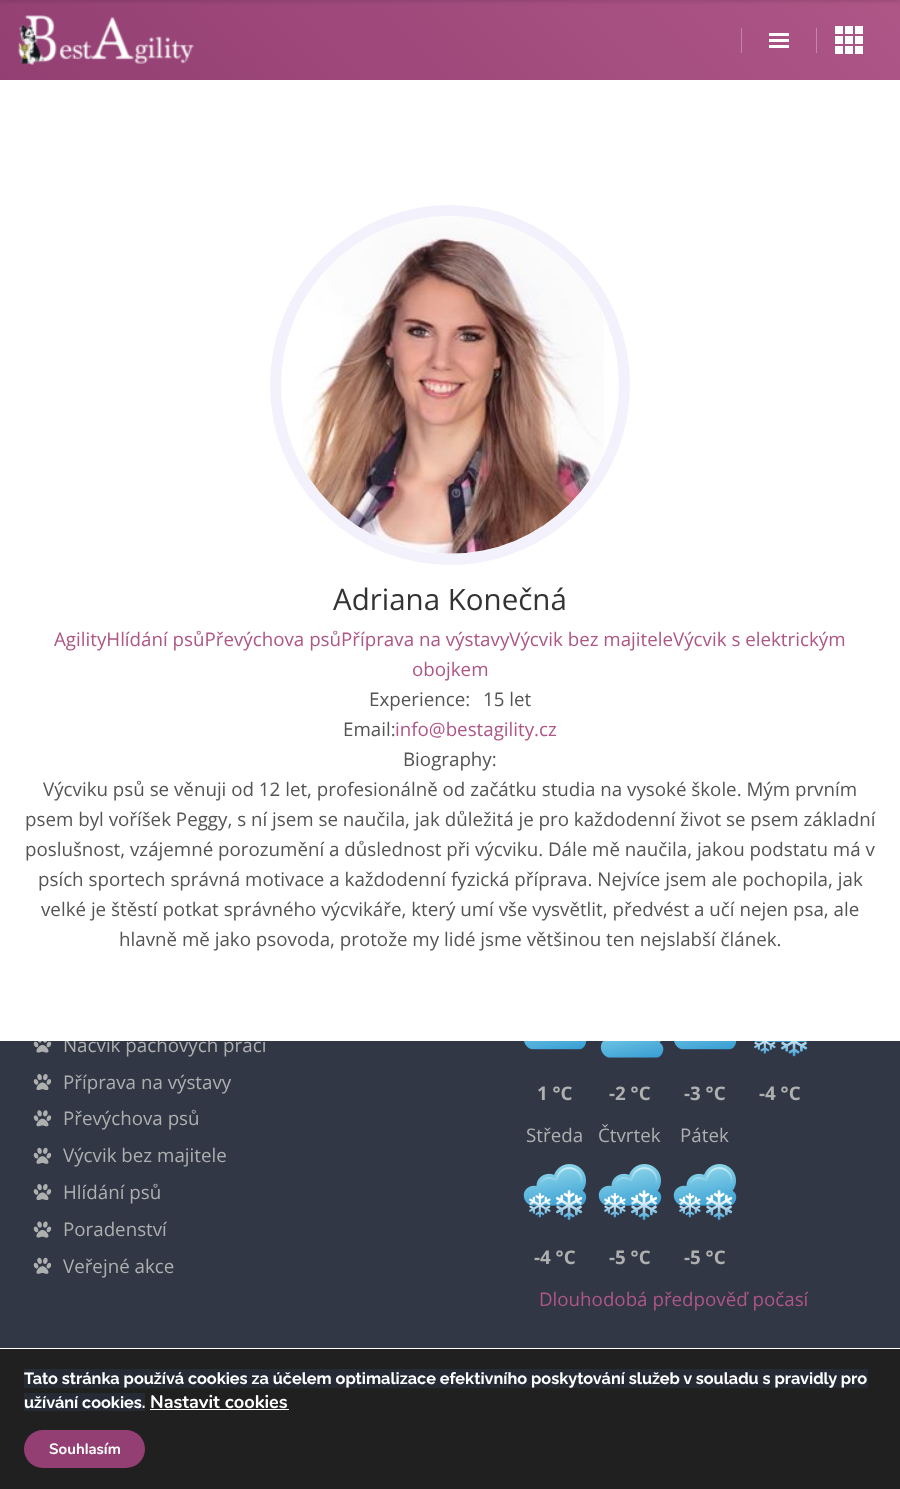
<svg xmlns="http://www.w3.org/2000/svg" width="900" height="1489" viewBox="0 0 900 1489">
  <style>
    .t1 { font: 18.75px Open Sans; fill: #aeafaf; }
    .t2 { font: 29.5px Open Sans; fill: #333; }
    .t3 { font: 18.75px Open Sans; fill: #ae5686; }
    .t4 { font: 18.75px Open Sans; fill: #545454; }
    .t5 { font: bold 18.75px Open Sans; fill: #aeafaf; }
    .t6 { font: bold 16.25px Raleway; fill: #fff; }
    .t7 { font: bold 18.25px Nunito; fill: #fff; }
    .t8 { font: bold 15px Nunito; fill: #fff; }
  </style>
  <defs>
    <linearGradient id="g1" gradientUnits="userSpaceOnUse" x1="205" y1="285" x2="695" y2="-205"><stop offset="0" stop-color="#933f73"/><stop offset="1" stop-color="#ae5686"/></linearGradient>
  </defs>
  <rect width="100%" height="100%" fill="#323746"/>
  <rect x="0" y="0" width="900" height="80" fill="url(#g1)"/>
  <image x="18" y="15" width="176" height="50" href="images/1.png"/>
  <rect x="741" y="28" width="1" height="25" fill="#c285a8"/>
  <rect x="769" y="39" width="20" height="3" fill="#fff"/>
  <rect x="769" y="33" width="20" height="3" fill="#fff"/>
  <rect x="769" y="45" width="20" height="3" fill="#fff"/>
  <rect x="816" y="28" width="1" height="25" fill="#c487a9"/>
  <rect x="835" y="26" width="8" height="8" fill="#fff"/>
  <rect x="845" y="26" width="8" height="8" fill="#fff"/>
  <rect x="855" y="26" width="8" height="8" fill="#fff"/>
  <rect x="835" y="36" width="8" height="8" fill="#fff"/>
  <rect x="845" y="36" width="8" height="8" fill="#fff"/>
  <rect x="855" y="36" width="8" height="8" fill="#fff"/>
  <rect x="835" y="46" width="8" height="8" fill="#fff"/>
  <rect x="845" y="46" width="8" height="8" fill="#fff"/>
  <rect x="855" y="46" width="8" height="8" fill="#fff"/>
  <rect x="0" y="-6" width="900" height="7" fill="#00000026" filter="blur(2px)"/>
  <text x="63" y="1052" class="t1">Nácvik pachových prací</text>
  <rect x="0" y="80" width="900" height="961" fill="#fff"/>
  <circle cx="450" cy="385" r="174.5" fill="none" stroke="#f3f1fb" stroke-width="11"/>
  <image x="302" y="217" width="302" height="337" href="images/2.png"/>
  <text x="333" y="610" class="t2">Adriana Konečná</text>
  <text x="54" y="646" class="t3">AgilityHlídání psůPřevýchova psůPříprava na výstavyVýcvik bez majiteleVýcvik s elektrickým</text>
  <text x="412" y="676" class="t3">obojkem</text>
  <text x="369" y="706" class="t4">Experience:</text>
  <text x="483" y="706" class="t4">15 let</text>
  <text x="343" y="736" class="t4">Email:</text>
  <text x="395" y="736" class="t3">info@bestagility.cz</text>
  <text x="403" y="766" class="t4">Biography:</text>
  <text x="43" y="796" class="t4">Výcviku psů se věnuji od 12 let, profesionálně od začátku studia na vysoké škole. Mým prvním</text>
  <text x="25" y="826" class="t4">psem byl voříšek Peggy, s ní jsem se naučila, jak důležitá je pro každodenní život se psem základní</text>
  <text x="25" y="856" class="t4">poslušnost, vzájemné porozumění a důslednost při výcviku. Dále mě naučila, jakou podstatu má v</text>
  <text x="38" y="886" class="t4">psích sportech správná motivace a každodenní fyzická příprava. Nejvíce jsem ale pochopila, jak</text>
  <text x="41" y="916" class="t4">velké je štěstí potkat správného výcvikáře, který umí vše vysvětlit, předvést a učí nejen psa, ale</text>
  <text x="119" y="946" class="t4">hlavně mě jako psovoda, protože my lidé jsme většinou ten nejslabší článek.</text>
  <image x="33" y="1041" width="19" height="12" href="images/3.png"/>
  <image x="33" y="1074" width="19" height="17" href="images/4.png"/>
  <text x="63" y="1089" class="t1">Příprava na výstavy</text>
  <image x="33" y="1110" width="19" height="17" href="images/5.png"/>
  <text x="63" y="1125" class="t1">Převýchova psů</text>
  <image x="33" y="1147" width="19" height="17" href="images/6.png"/>
  <text x="63" y="1162" class="t1">Výcvik bez majitele</text>
  <image x="33" y="1184" width="19" height="17" href="images/4.png"/>
  <text x="63" y="1199" class="t1">Hlídání psů</text>
  <image x="33" y="1221" width="19" height="17" href="images/7.png"/>
  <text x="63" y="1236" class="t1">Poradenství</text>
  <image x="33" y="1257" width="19" height="17" href="images/6.png"/>
  <text x="63" y="1273" class="t1">Veřejné akce</text>
  <image x="524" y="1041" width="63" height="9" href="images/8.png"/>
  <text x="537" y="1100" class="t5">1 °C</text>
  <image x="600" y="1041" width="64" height="17" href="images/9.png"/>
  <text x="609" y="1100" class="t5">-2 °C</text>
  <image x="674" y="1041" width="63" height="9" href="images/8.png"/>
  <text x="684" y="1100" class="t5">-3 °C</text>
  <image x="754" y="1041" width="54" height="16" href="images/10.png"/>
  <text x="759" y="1100" class="t5">-4 °C</text>
  <text x="526" y="1142" class="t1">Středa</text>
  <image x="523" y="1164" width="64" height="57" href="images/11.png"/>
  <text x="534" y="1264" class="t5">-4 °C</text>
  <text x="598" y="1142" class="t1">Čtvrtek</text>
  <image x="598" y="1164" width="64" height="57" href="images/11.png"/>
  <text x="609" y="1264" class="t5">-5 °C</text>
  <text x="680" y="1142" class="t1">Pátek</text>
  <image x="673" y="1164" width="64" height="57" href="images/11.png"/>
  <text x="684" y="1264" class="t5">-5 °C</text>
  <text x="539" y="1306" class="t3">Dlouhodobá předpověď počasí</text>
  <rect x="0" y="1349" width="900" height="140" fill="#202020"/>
  <rect x="0" y="1348" width="900" height="1" fill="#fff"/>
  <rect x="24" y="1369" width="844" height="19" fill="#262a35"/>
  <text x="24" y="1384" class="t6">Tato stránka používá cookies za účelem optimalizace efektivního poskytování služeb v souladu s pravidly pro</text>
  <rect x="24" y="1393" width="121" height="18" fill="#262a35"/>
  <text x="24" y="1408" class="t6">užívání cookies.</text>
  <text x="150" y="1408" class="t7">Nastavit cookies</text>
  <rect x="150" y="1409" width="139" height="1" fill="#fff"/>
  <rect x="24" y="1430" width="121" height="38" rx="19" fill="#933f73"/>
  <text x="49" y="1454" class="t8">Souhlasím</text>
</svg>
